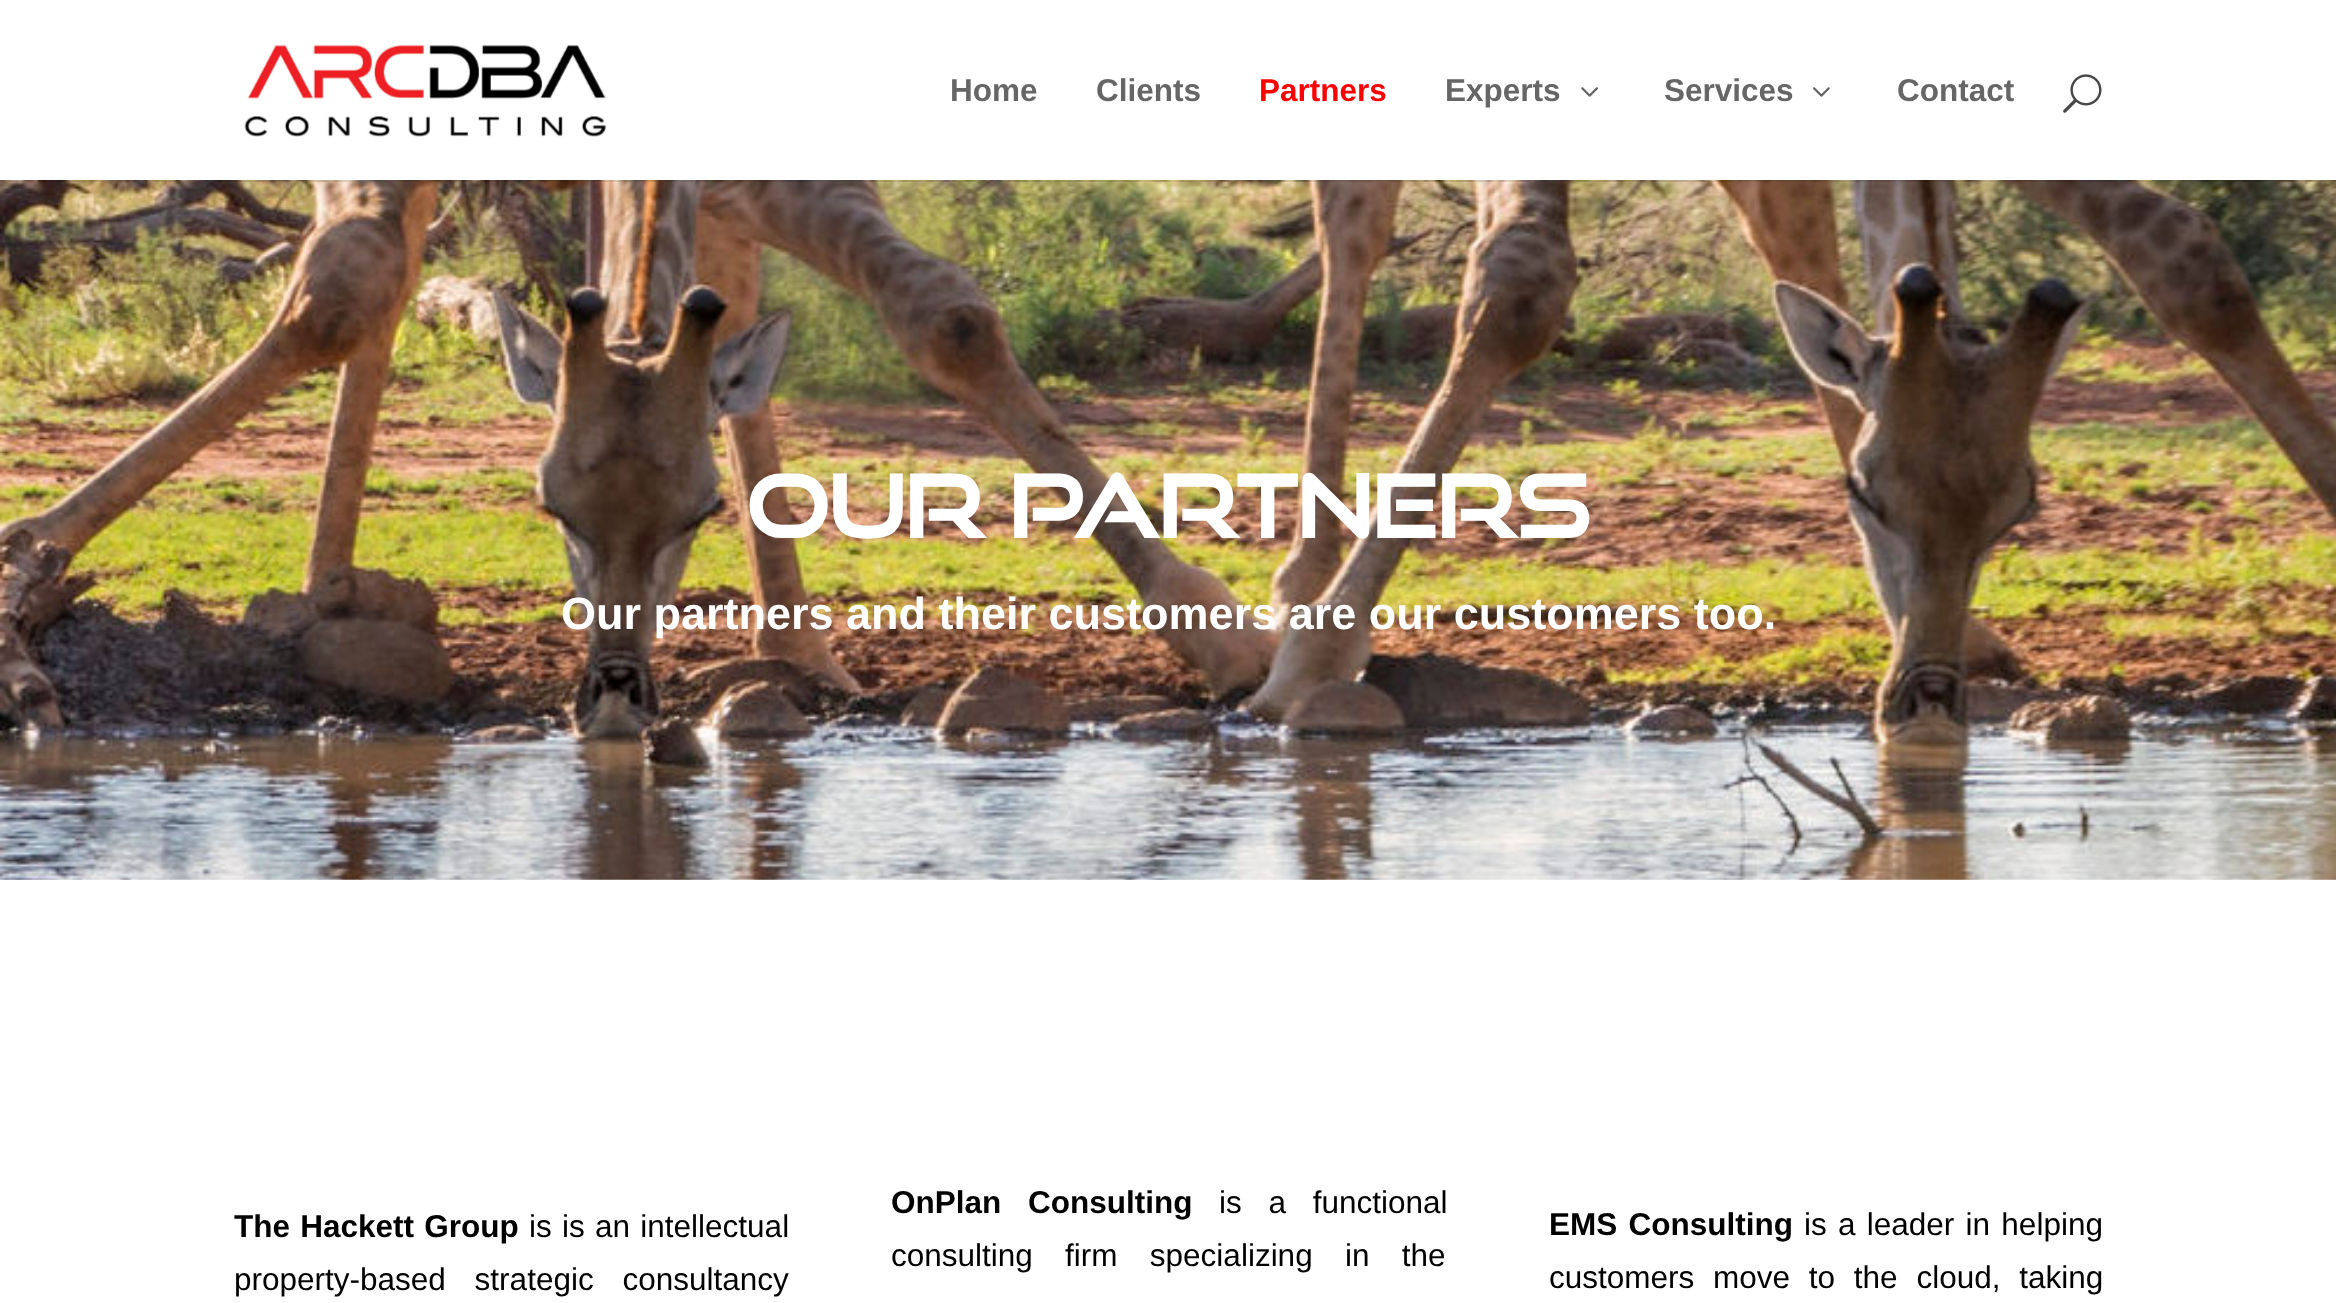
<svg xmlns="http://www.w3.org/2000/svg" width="2336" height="1303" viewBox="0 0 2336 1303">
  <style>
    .t1 { font: bold 31.5px Liberation Sans; fill: #666; }
    .t2 { font: bold 31.5px Liberation Sans; fill: #f00; }
    .t3 { font: bold 85.5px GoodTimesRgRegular; fill: #fff; }
    .t4 { font: bold 45px Liberation Sans; fill: #fff; }
    .t5 { font: bold 31.5px Liberation Sans; fill: #000; }
    .t6 { font: 31.5px Liberation Sans; fill: #000; }
  </style>
  <rect width="100%" height="100%" fill="#fff"/>
  <image x="0" y="180" width="2336" height="700" href="images/5.png"/>
  <path d="M0 180V182H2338V2V180Z" fill="#0000001a"/>
  <image x="244" y="44" width="363" height="93" href="images/1.png"/>
  <text x="950" y="101" class="t1">Home</text>
  <text x="1096" y="101" class="t1">Clients</text>
  <text x="1259" y="101" class="t2">Partners</text>
  <text x="1445" y="101" class="t1">Experts</text>
  <image x="1581" y="87" width="17" height="10" href="images/2.png"/>
  <text x="1664" y="101" class="t1">Services</text>
  <image x="1813" y="87" width="17" height="10" href="images/3.png"/>
  <text x="1897" y="101" class="t1">Contact</text>
  <image x="2063" y="74" width="39" height="39" href="images/4.png"/>
  <text x="746" y="538" class="t3">Our Partners</text>
  <text x="561" y="629" class="t4">Our partners and their customers are our customers too.</text>
  <text x="234" y="1237" word-spacing="1.5" class="t5">The Hackett Group</text>
  <text x="529" y="1237" word-spacing="1.5" class="t6">is is an intellectual</text>
  <text x="234" y="1290" word-spacing="20" class="t6">property-based strategic consultancy</text>
  <text x="891" y="1213" word-spacing="18" class="t5">OnPlan Consulting</text>
  <text x="1219" y="1213" word-spacing="18" class="t6">is a functional</text>
  <text x="891" y="1266" word-spacing="23.5" class="t6">consulting firm specializing in the</text>
  <text x="1549" y="1235" word-spacing="2.5" class="t5">EMS Consulting</text>
  <text x="1804" y="1235" word-spacing="2.5" class="t6">is a leader in helping</text>
  <text x="1549" y="1288" word-spacing="10" class="t6">customers move to the cloud, taking</text>
</svg>
